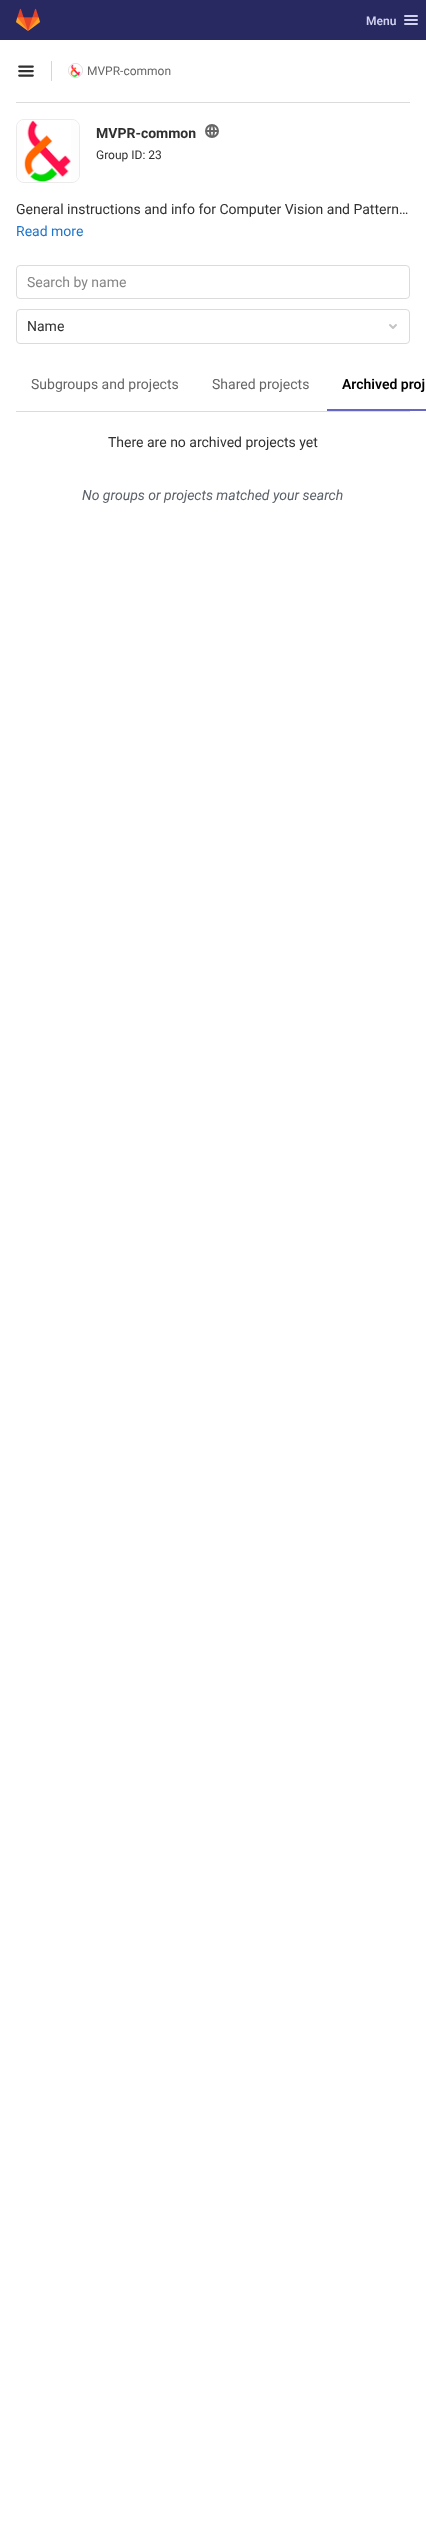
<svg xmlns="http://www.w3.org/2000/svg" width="426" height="2539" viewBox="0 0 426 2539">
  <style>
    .t1 { font: 600 12px Roboto; fill: #d1d1f0; }
    .t2 { font: 12px Roboto; fill: #666; }
    .t3 { font: bold 14px Roboto; fill: #303030; }
    .t4 { font: 12px Roboto; fill: #303030; }
    .t5 { font: 14px Roboto; fill: #303030; }
    .t6 { font: 14px Roboto; fill: #1f75cb; }
    .t7 { font: 14px Roboto; fill: #868686; }
    .t8 { font: 14px Roboto; fill: #666; }
    .t9 { font: 600 14px Roboto; fill: #000; }
    .t10 { font: italic 14px Roboto; fill: #5b6169; }
  </style>
  <rect width="100%" height="100%" fill="#fff"/>
  <rect x="0" y="0" width="426" height="40" fill="#292961"/>
  <image x="16" y="8" width="24" height="23" href="images/1.png"/>
  <text x="366" y="25" class="t1">Menu</text>
  <image x="404" y="15" width="14" height="10" href="images/2.png"/>
  <rect x="16" y="102" width="394" height="1" fill="#dbdbdb"/>
  <image x="18" y="65" width="16" height="12" href="images/3.png"/>
  <rect x="51" y="61" width="1" height="20" fill="#d6d6d6"/>
  <circle cx="75.5" cy="70.5" r="7" fill="none" stroke="#dbdbdb"/>
  <image x="69" y="64" width="13" height="13" href="images/4.png"/>
  <text x="87" y="75" class="t2">MVPR-common</text>
  <rect x="16.5" y="119.5" width="63" height="63" rx="7.5" fill="none" stroke="#ebebeb"/>
  <rect x="17" y="120" width="62" height="62" rx="7" fill="#fdfdfd"/>
  <image x="24" y="120" width="47" height="62" href="images/5.png"/>
  <text x="96" y="138" class="t3">MVPR-common</text>
  <image x="205" y="124" width="14" height="14" href="images/6.png"/>
  <text x="96" y="159" class="t4">Group ID: 23</text>
  <text x="16" y="214" class="t5">General instructions and info for Computer Vision and Pattern…</text>
  <text x="16" y="236" class="t6">Read more</text>
  <rect x="16" y="411" width="394" height="1" fill="#dbdbdb"/>
  <rect x="16.5" y="265.5" width="393" height="33" rx="3.5" fill="none" stroke="#dbdbdb"/>
  <text x="27" y="287" class="t7">Search by name</text>
  <rect x="16.5" y="309.5" width="393" height="34" rx="3.5" fill="none" stroke="#dbdbdb"/>
  <text x="27" y="331" class="t5">Name</text>
  <image x="389" y="324" width="8" height="5" href="images/7.png"/>
  <text x="31" y="389" class="t8">Subgroups and projects</text>
  <text x="212" y="389" class="t8">Shared projects</text>
  <rect x="327" y="409" width="99" height="2" fill="#6666c4"/>
  <text x="342" y="389" class="t9">Archived proj</text>
  <text x="108" y="447" class="t5">There are no archived projects yet</text>
  <text x="82" y="500" class="t10">No groups or projects matched your search</text>
</svg>
